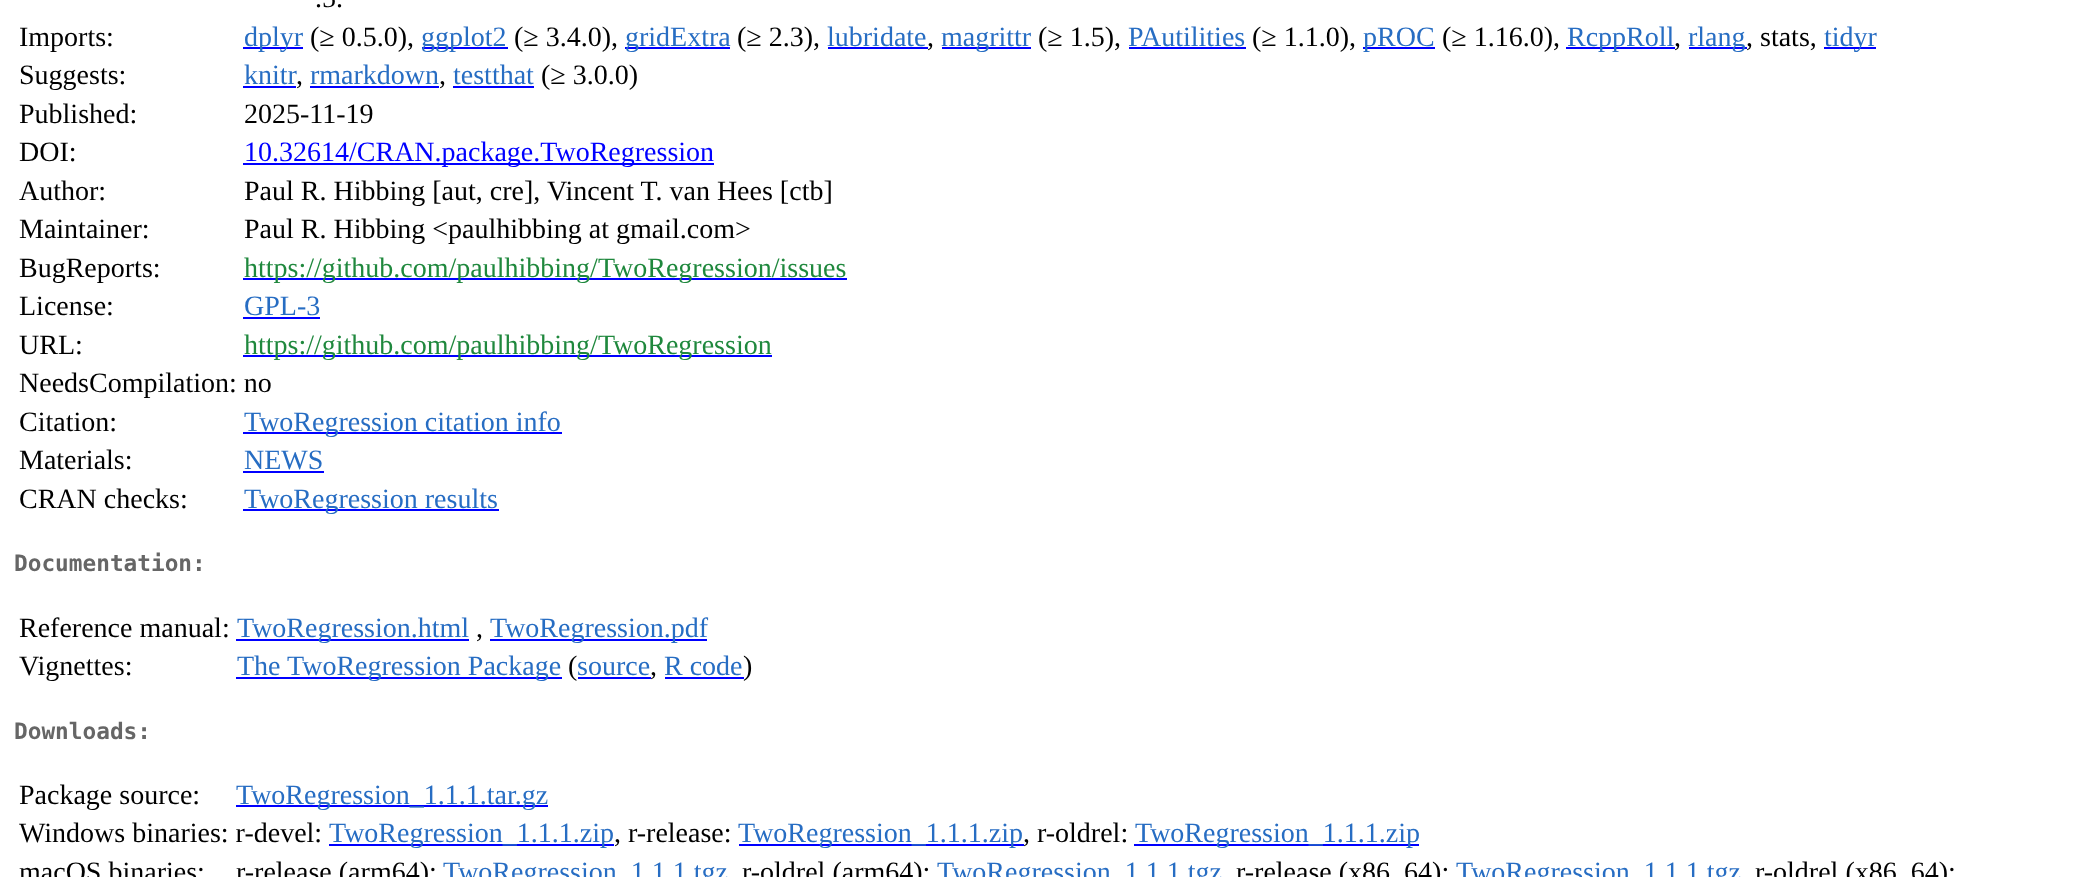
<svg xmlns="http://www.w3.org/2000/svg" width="2100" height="877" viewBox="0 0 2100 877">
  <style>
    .t1 { font: 28px Liberation Serif; fill: #000; }
    .t2 { font: 28px Liberation Serif; fill: #276dc3; }
    .t3 { font: 28px Liberation Serif; fill: #00f; }
    .t4 { font: 28px Liberation Serif; fill: #1f883d; }
    .t5 { font: bold 22.75px DejaVu Sans Mono; fill: #666; }
  </style>
  <rect width="100%" height="100%" fill="#fff"/>
  <text x="315" y="7" class="t1">.5.</text>
  <text x="19" y="46" class="t1">Imports:</text>
  <rect x="243" y="47" width="60" height="2" fill="#00f"/>
  <text x="244" y="46" class="t2">dplyr</text>
  <text x="310" y="46" class="t1">(≥ 0.5.0),</text>
  <rect x="422" y="47" width="86" height="2" fill="#00f"/>
  <text x="421" y="46" class="t2">ggplot2</text>
  <text x="514" y="46" class="t1">(≥ 3.4.0),</text>
  <rect x="625" y="47" width="105" height="2" fill="#00f"/>
  <text x="625" y="46" class="t2">gridExtra</text>
  <text x="737" y="46" class="t1">(≥ 2.3),</text>
  <text x="827" y="46" class="t2">lubridate</text>
  <rect x="828" y="47" width="100" height="2" fill="#00f"/>
  <text x="927" y="46" class="t1">,</text>
  <rect x="942" y="47" width="89" height="2" fill="#00f"/>
  <text x="941" y="46" class="t2">magrittr</text>
  <text x="1038" y="46" class="t1">(≥ 1.5),</text>
  <text x="1128" y="46" class="t2">PAutilities</text>
  <rect x="1129" y="47" width="117" height="2" fill="#00f"/>
  <text x="1252" y="46" class="t1">(≥ 1.1.0),</text>
  <rect x="1363" y="47" width="72" height="2" fill="#00f"/>
  <text x="1363" y="46" class="t2">pROC</text>
  <text x="1442" y="46" class="t1">(≥ 1.16.0),</text>
  <rect x="1566" y="47" width="109" height="2" fill="#00f"/>
  <text x="1567" y="46" class="t2">RcppRoll</text>
  <text x="1674" y="46" class="t1">,</text>
  <rect x="1689" y="47" width="58" height="2" fill="#00f"/>
  <text x="1688" y="46" class="t2">rlang</text>
  <text x="1746" y="46" class="t1">, stats,</text>
  <rect x="1824" y="47" width="52" height="2" fill="#00f"/>
  <text x="1824" y="46" class="t2">tidyr</text>
  <text x="19" y="84" class="t1">Suggests:</text>
  <text x="244" y="84" class="t2">knitr</text>
  <rect x="243" y="86" width="53" height="2" fill="#00f"/>
  <text x="296" y="84" class="t1">,</text>
  <text x="310" y="84" class="t2">rmarkdown</text>
  <rect x="310" y="86" width="129" height="2" fill="#00f"/>
  <text x="439" y="84" class="t1">,</text>
  <text x="453" y="84" class="t2">testthat</text>
  <rect x="453" y="86" width="81" height="2" fill="#00f"/>
  <text x="541" y="84" class="t1">(≥ 3.0.0)</text>
  <text x="19" y="123" class="t1">Published:</text>
  <text x="244" y="123" class="t1">2025-11-19</text>
  <text x="19" y="161" class="t1">DOI:</text>
  <rect x="243" y="163" width="471" height="2" fill="#00f"/>
  <text x="244" y="161" class="t3">10.32614/CRAN.package.TwoRegression</text>
  <text x="19" y="200" class="t1">Author:</text>
  <text x="244" y="200" class="t1">Paul R. Hibbing [aut, cre],</text>
  <text x="547" y="200" class="t1">Vincent T. van Hees [ctb]</text>
  <text x="19" y="238" class="t1">Maintainer:</text>
  <text x="244" y="238" class="t1">Paul R. Hibbing &lt;paulhibbing at gmail.com&gt;</text>
  <text x="19" y="277" class="t1">BugReports:</text>
  <rect x="243" y="278" width="604" height="2" fill="#00f"/>
  <text x="244" y="277" class="t4">https://github.com/paulhibbing/TwoRegression/issues</text>
  <text x="19" y="315" class="t1">License:</text>
  <text x="244" y="315" class="t2">GPL-3</text>
  <rect x="243" y="317" width="77" height="2" fill="#00f"/>
  <text x="19" y="354" class="t1">URL:</text>
  <rect x="243" y="355" width="529" height="2" fill="#00f"/>
  <text x="244" y="354" class="t4">https://github.com/paulhibbing/TwoRegression</text>
  <text x="19" y="392" class="t1">NeedsCompilation: no</text>
  <text x="19" y="431" class="t1">Citation:</text>
  <rect x="243" y="432" width="319" height="2" fill="#00f"/>
  <text x="244" y="431" class="t2">TwoRegression citation info</text>
  <text x="19" y="469" class="t1">Materials:</text>
  <text x="244" y="469" class="t2">NEWS</text>
  <rect x="243" y="471" width="81" height="2" fill="#00f"/>
  <text x="19" y="508" class="t1">CRAN checks:</text>
  <rect x="243" y="509" width="256" height="2" fill="#00f"/>
  <text x="244" y="508" class="t2">TwoRegression results</text>
  <text x="14" y="571" class="t5">Documentation:</text>
  <text x="19" y="637" class="t1">Reference manual:</text>
  <rect x="236" y="639" width="233" height="2" fill="#00f"/>
  <text x="237" y="637" class="t2">TwoRegression.html</text>
  <text x="476" y="637" class="t1">,</text>
  <rect x="490" y="639" width="217" height="2" fill="#00f"/>
  <text x="490" y="637" class="t2">TwoRegression.pdf</text>
  <text x="19" y="675" class="t1">Vignettes:</text>
  <rect x="236" y="677" width="326" height="2" fill="#00f"/>
  <text x="237" y="675" class="t2">The TwoRegression Package</text>
  <text x="568" y="675" class="t1">(</text>
  <text x="577" y="675" class="t2">source</text>
  <rect x="578" y="677" width="73" height="2" fill="#00f"/>
  <text x="650" y="675" class="t1">,</text>
  <text x="664" y="675" class="t2">R code</text>
  <rect x="665" y="677" width="79" height="2" fill="#00f"/>
  <text x="743" y="675" class="t1">)</text>
  <text x="14" y="739" class="t5">Downloads:</text>
  <text x="19" y="804" class="t1">Package source:</text>
  <rect x="236" y="805" width="312" height="2" fill="#00f"/>
  <text x="236" y="804" class="t2">TwoRegression_1.1.1.tar.gz</text>
  <text x="19" y="842" class="t1">Windows binaries: r-devel:</text>
  <rect x="329" y="844" width="285" height="2" fill="#00f"/>
  <text x="329" y="842" class="t2">TwoRegression_1.1.1.zip</text>
  <text x="614" y="842" class="t1">, r-release:</text>
  <rect x="739" y="844" width="285" height="2" fill="#00f"/>
  <text x="738" y="842" class="t2">TwoRegression_1.1.1.zip</text>
  <text x="1023" y="842" class="t1">, r-oldrel:</text>
  <rect x="1134" y="844" width="285" height="2" fill="#00f"/>
  <text x="1135" y="842" class="t2">TwoRegression_1.1.1.zip</text>
  <text x="19" y="881" class="t1">macOS binaries:</text>
  <text x="236" y="881" class="t1">r-release (arm64):</text>
  <text x="443" y="881" class="t2">TwoRegression_1.1.1.tgz</text>
  <text x="742" y="881" class="t1">r-oldrel (arm64):</text>
  <text x="937" y="881" class="t2">TwoRegression_1.1.1.tgz</text>
  <text x="1236" y="881" class="t1">r-release (x86_64):</text>
  <text x="1456" y="881" class="t2">TwoRegression_1.1.1.tgz</text>
  <text x="1755" y="881" class="t1">r-oldrel (x86_64):</text>
</svg>
